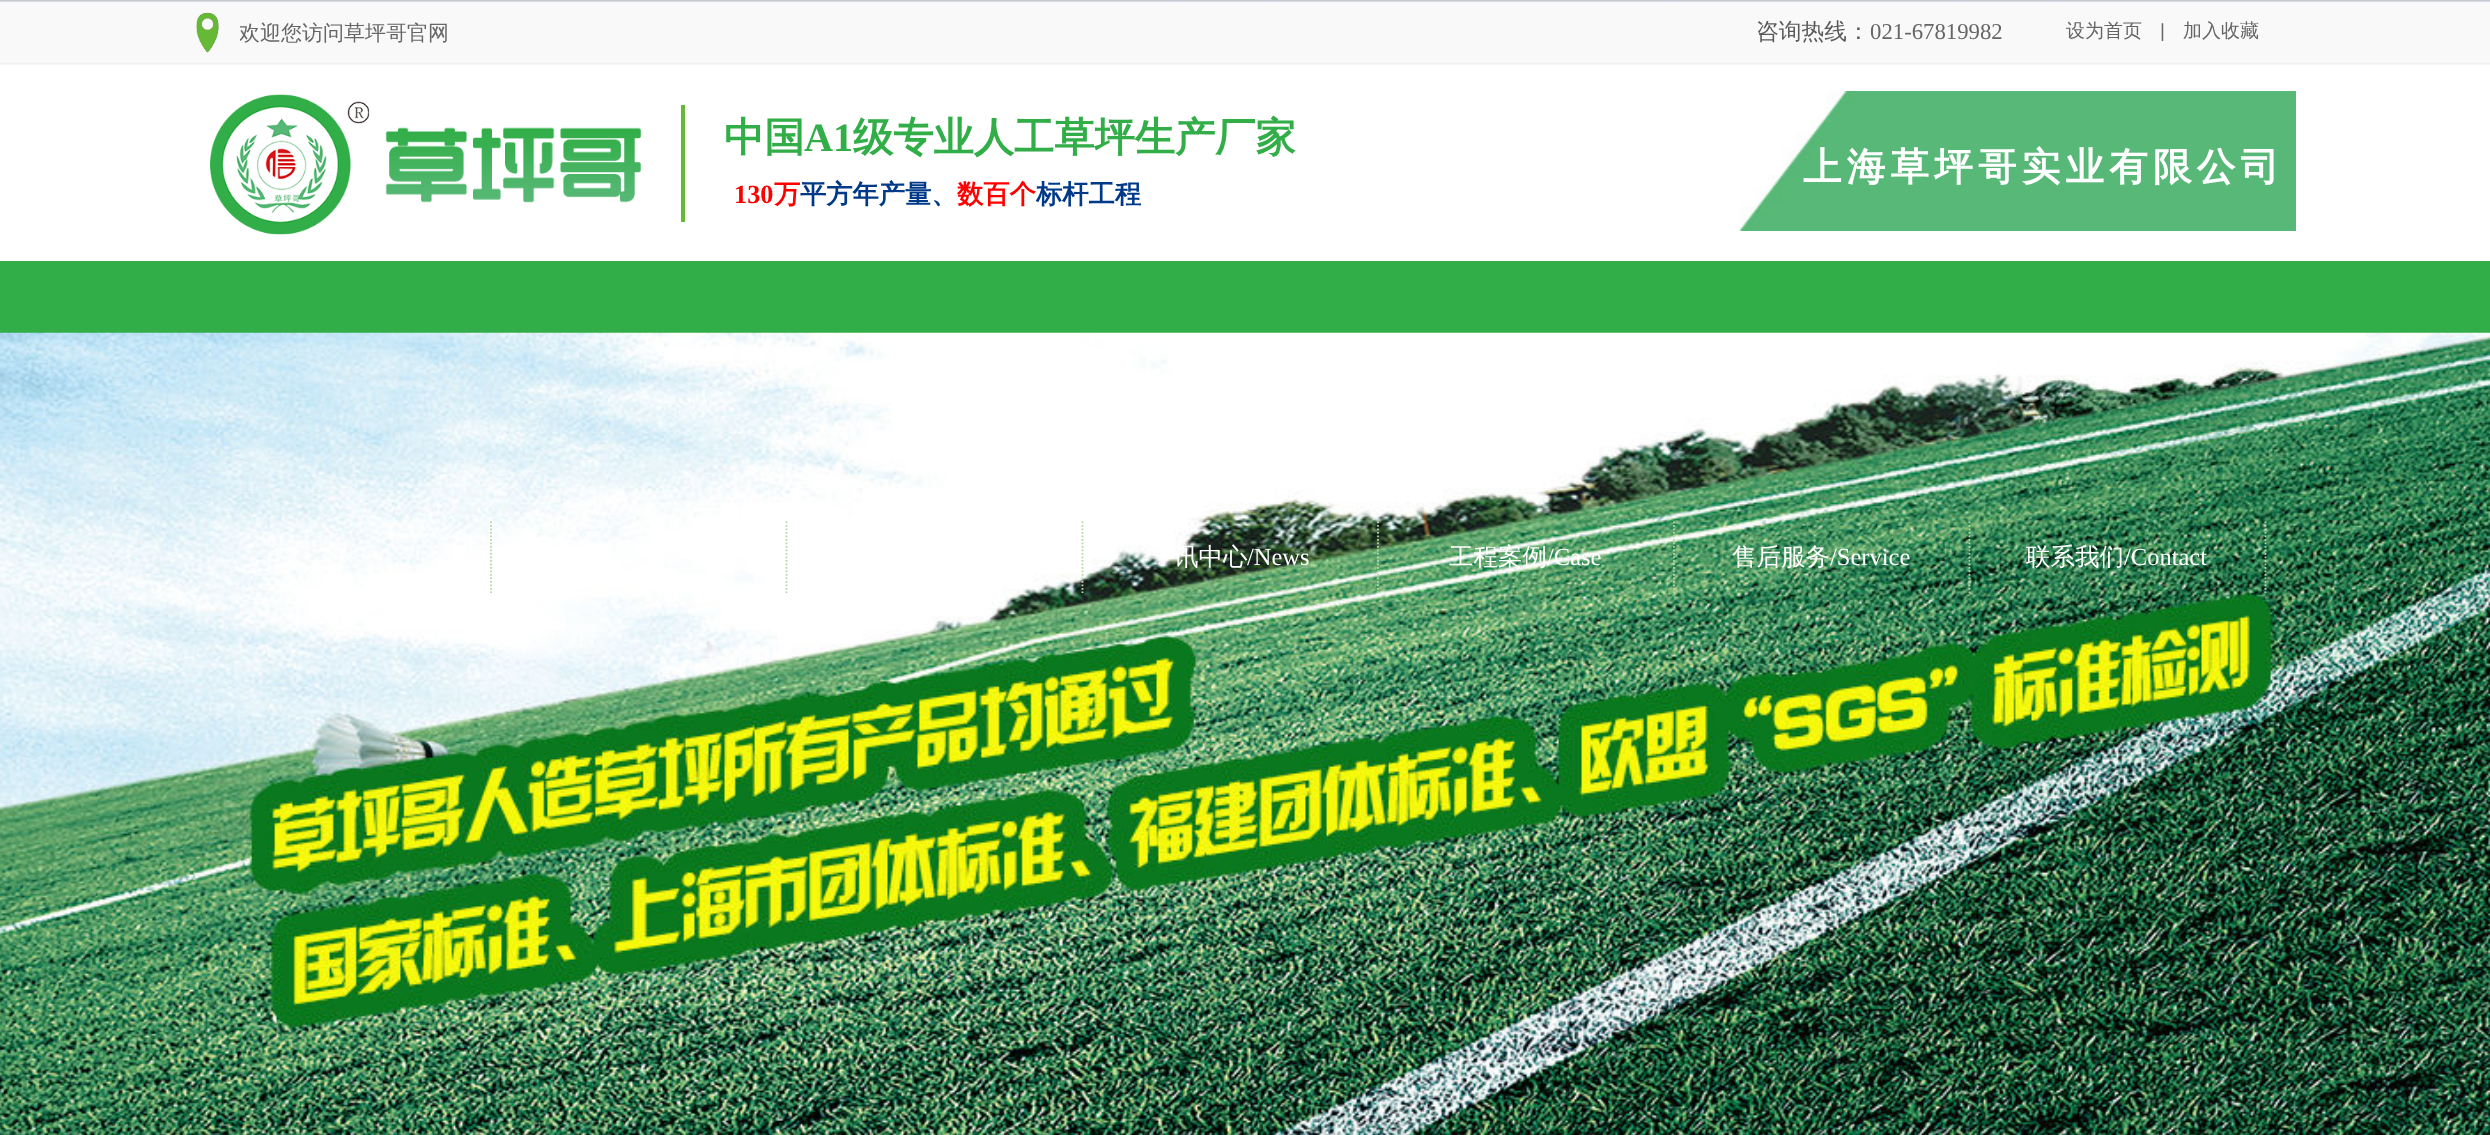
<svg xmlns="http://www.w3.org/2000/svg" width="2490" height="1135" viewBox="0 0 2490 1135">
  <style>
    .t1 { font: 500 21px WenQuanYi Zen Hei; fill: #666; }
    .t2 { font: 500 22.75px WenQuanYi Zen Hei; fill: #5a5a5a; }
    .t3 { font: 22.75px Liberation Serif; fill: #666; }
    .t4 { font: 500 19px WenQuanYi Zen Hei; fill: #666; }
    .t5 { font: 19px Liberation Sans; fill: #666; }
    .t6 { font: bold 40.25px WenQuanYi Zen Hei; fill: #32ae48; }
    .t7 { font: bold 40.25px Liberation Serif; fill: #32ae48; }
    .t8 { font: bold 38.5px WenQuanYi Zen Hei; letter-spacing: 5.25px; fill: #fff; }
    .t9 { font: bold 26.25px Liberation Serif; fill: #f00; }
    .t10 { font: bold 26.25px WenQuanYi Zen Hei; fill: #f00; }
    .t11 { font: bold 26.25px WenQuanYi Zen Hei; fill: #003988; }
    .t12 { font: 500 24.5px WenQuanYi Zen Hei; fill: #fff; }
    .t13 { font: 24.5px Liberation Serif; fill: #fff; }
  </style>
  <defs>
    <clipPath id="clip1"><rect x="240" y="19" width="469" height="30"/></clipPath>
  </defs>
  <rect width="100%" height="100%" fill="#fff"/>
  <image x="0" y="0" width="2490" height="65" href="images/1.png"/>
  <image x="196" y="12" width="23" height="41" href="images/2.png"/>
  <g clip-path="url(#clip1)">
    <text x="239" y="40" class="t1">欢迎您访问</text>
  </g>
  <text x="344" y="40" class="t1">草坪哥官网</text>
  <text x="1756" y="39" class="t2">咨询热线：</text>
  <text x="1870" y="39" class="t3">021-67819982</text>
  <text x="2066" y="37" class="t4">设为首页</text>
  <text x="2160" y="37" class="t5">|</text>
  <text x="2183" y="37" class="t4">加入收藏</text>
  <image x="210" y="94" width="160" height="141" href="images/3.png"/>
  <image x="385" y="127" width="256" height="76" href="images/4.png"/>
  <rect x="681" y="105" width="4" height="117" fill="#66b935"/>
  <text x="724" y="151" class="t6">中国</text>
  <text x="804" y="151" class="t7">A1</text>
  <text x="853" y="151" class="t6">级专业人工草坪生产厂家</text>
  <image x="1739" y="91" width="557" height="140" href="images/5.png"/>
  <text x="1803" y="180" class="t8">上海草坪哥实业有限公司</text>
  <text x="734" y="203" class="t9">130</text>
  <text x="774" y="203" class="t10">万</text>
  <text x="800" y="203" class="t11">平方年产量、</text>
  <text x="957" y="203" class="t10">数百个</text>
  <text x="1036" y="203" class="t11">标杆工程</text>
  <rect x="0" y="261" width="2490" height="72" fill="#32ae48"/>
  <image x="0" y="332" width="2490" height="803" href="images/6.png"/>
  <path d="M491 521.5V593" fill="none" stroke="#b6d7a8" stroke-width="1.8" stroke-dasharray="1.75 1.75"/>
  <path d="M786.5 521.5V593" fill="none" stroke="#b6d7a8" stroke-width="1.8" stroke-dasharray="1.75 1.75"/>
  <path d="M1082.5 521.5V593" fill="none" stroke="#b6d7a8" stroke-width="1.8" stroke-dasharray="1.75 1.75"/>
  <path d="M1378 521.5V593" fill="none" stroke="#b6d7a8" stroke-width="1.8" stroke-dasharray="1.75 1.75"/>
  <text x="1174" y="565" class="t12">讯中心</text>
  <text x="1247" y="565" class="t13">/News</text>
  <path d="M1674 521.5V593" fill="none" stroke="#b6d7a8" stroke-width="1.8" stroke-dasharray="1.75 1.75"/>
  <text x="1449" y="565" class="t12">工程案例</text>
  <text x="1547" y="565" class="t13">/Case</text>
  <path d="M1969.5 521.5V593" fill="none" stroke="#b6d7a8" stroke-width="1.8" stroke-dasharray="1.75 1.75"/>
  <text x="1732" y="565" class="t12">售后服务</text>
  <text x="1830" y="565" class="t13">/Service</text>
  <path d="M2265.5 521.5V593" fill="none" stroke="#b6d7a8" stroke-width="1.8" stroke-dasharray="1.75 1.75"/>
  <text x="2026" y="565" class="t12">联系我们</text>
  <text x="2124" y="565" class="t13">/Contact</text>
</svg>
